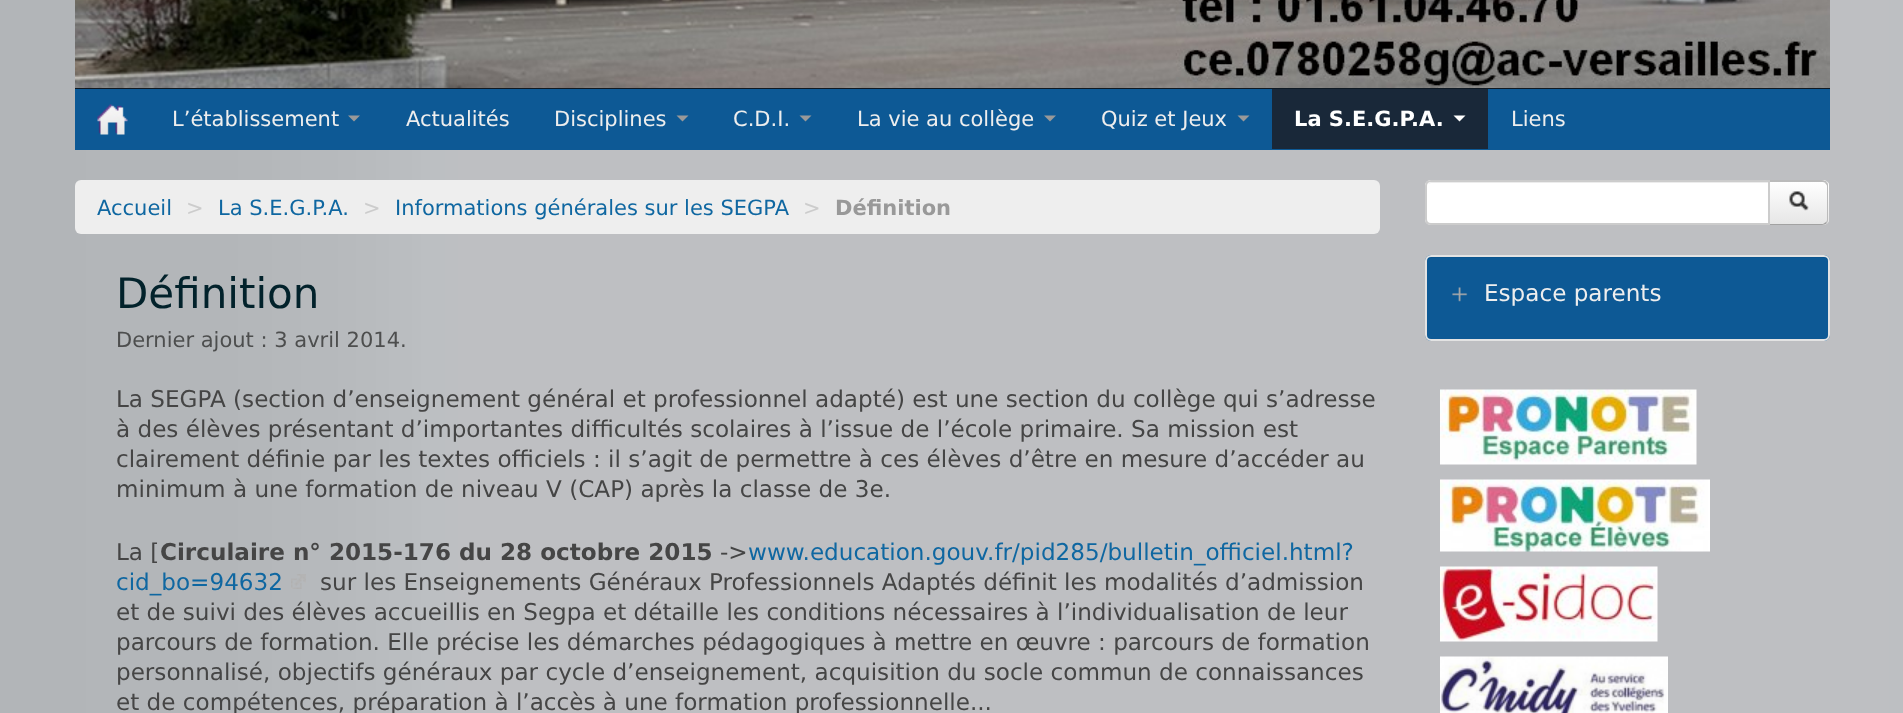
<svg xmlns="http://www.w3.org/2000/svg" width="1903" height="713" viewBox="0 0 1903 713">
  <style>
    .t1 { font: 21px DejaVu Sans; fill: #eee; }
    .t2 { font: bold 21px DejaVu Sans; fill: #fff; }
    .t3 { font: 21px DejaVu Sans; fill: #0f67a1; }
    .t4 { font: 21px DejaVu Sans; fill: #ccc; }
    .t5 { font: bold 21px DejaVu Sans; fill: #999; }
    .t6 { font: 42px DejaVu Sans; fill: #02222b; }
    .t7 { font: 21px DejaVu Sans; fill: #4d4e4e; }
    .t8 { font: 23.1px DejaVu Sans; fill: #454545; }
    .t9 { font: bold 23.1px DejaVu Sans; fill: #454545; }
    .t10 { font: 23.1px DejaVu Sans; fill: #0f67a1; }
    .t11 { font: 23.1px DejaVu Sans; fill: #eee; }
  </style>
  <defs>
    <clipPath id="clip1"><path d="M1769 180H1823C1826.5 180 1829 182.5 1829 186V219C1829 222.5 1826.5 225 1823 225H1769Z"/></clipPath>
    <linearGradient id="g1" gradientUnits="userSpaceOnUse" x1="1799" y1="182" x2="1799" y2="224"><stop offset="0" stop-color="#fff"/><stop offset="1" stop-color="#e6e6e6"/></linearGradient>
  </defs>
  <rect width="100%" height="100%" fill="#39424b"/>
  <image x="0" y="0" width="1903" height="713" href="images/1.png"/>
  <rect x="75" y="88" width="1755" height="1" fill="#0f1923"/>
  <image x="75" y="0" width="1755" height="88" href="images/2.png"/>
  <rect x="75" y="89" width="1755" height="61" fill="#0d5995"/>
  <image x="97" y="104" width="31" height="31" href="images/3.png"/>
  <text x="172" y="126" class="t1">L’établissement</text>
  <path d="M348 115.5H360L354 121.5Z" fill="#999"/>
  <text x="406" y="126" class="t1">Actualités</text>
  <text x="554" y="126" class="t1">Disciplines</text>
  <path d="M676.5 115.5H688.5L682.5 121.5Z" fill="#999"/>
  <text x="733" y="126" class="t1">C.D.I.</text>
  <path d="M799.5 115.5H811.5L805.5 121.5Z" fill="#999"/>
  <text x="857" y="126" class="t1">La vie au collège</text>
  <path d="M1044 115.5H1056L1050 121.5Z" fill="#999"/>
  <text x="1101" y="126" class="t1">Quiz et Jeux</text>
  <path d="M1237.5 115.5H1249.5L1243.5 121.5Z" fill="#999"/>
  <rect x="1272" y="89" width="216" height="60" fill="#192839"/>
  <text x="1294" y="126" class="t2">La S.E.G.P.A.</text>
  <path d="M1453.5 115.5H1465.5L1459.5 121.5Z" fill="#fff"/>
  <text x="1511" y="126" class="t1">Liens</text>
  <rect x="75" y="180" width="1305" height="54" rx="6" fill="#eee"/>
  <text x="97" y="215" class="t3">Accueil</text>
  <text x="186" y="215" class="t4">&gt;</text>
  <text x="218" y="215" class="t3">La S.E.G.P.A.</text>
  <text x="363" y="215" class="t4">&gt;</text>
  <text x="395" y="215" class="t3">Informations générales sur les SEGPA</text>
  <text x="803" y="215" class="t4">&gt;</text>
  <text x="835" y="215" class="t5">Définition</text>
  <text x="116" y="308" class="t6">Définition</text>
  <text x="116" y="347" class="t7">Dernier ajout : 3 avril 2014.</text>
  <text x="116" y="407" class="t8">La SEGPA (section d’enseignement général et professionnel adapté) est une section du collège qui s’adresse</text>
  <text x="116" y="437" class="t8">à des élèves présentant d’importantes difficultés scolaires à l’issue de l’école primaire. Sa mission est</text>
  <text x="116" y="467" class="t8">clairement définie par les textes officiels : il s’agit de permettre à ces élèves d’être en mesure d’accéder au</text>
  <text x="116" y="497" class="t8">minimum à une formation de niveau V (CAP) après la classe de 3e.</text>
  <text x="116" y="560" class="t8">La [</text>
  <text x="160" y="560" class="t9">Circulaire n° 2015-176 du 28 octobre 2015</text>
  <text x="720" y="560" class="t8">-&gt;</text>
  <text x="748" y="560" class="t10">www.education.gouv.fr/pid285/bulletin_officiel.html?</text>
  <text x="116" y="590" class="t10">cid_bo=94632</text>
  <image x="291" y="574" width="15" height="15" href="images/4.png"/>
  <text x="320" y="590" class="t8">sur les Enseignements Généraux Professionnels Adaptés définit les modalités d’admission</text>
  <text x="116" y="620" class="t8">et de suivi des élèves accueillis en Segpa et détaille les conditions nécessaires à l’individualisation de leur</text>
  <text x="116" y="650" class="t8">parcours de formation. Elle précise les démarches pédagogiques à mettre en œuvre : parcours de formation</text>
  <text x="116" y="680" class="t8">personnalisé, objectifs généraux par cycle d’enseignement, acquisition du socle commun de connaissances</text>
  <text x="116" y="710" class="t8">et de compétences, préparation à l’accès à une formation professionnelle...</text>
  <path d="M1769 180H1823C1826.5 180 1829 182.5 1829 186V219C1829 222.5 1826.5 225 1823 225H1769Z" fill="#f5f5f5"/>
  <g clip-path="url(#clip1)">
    <rect x="1770" y="182" width="59" height="42" fill="url(#g1)"/>
  </g>
  <path d="M1768 180L1770 182H1822C1823 182 1825 182 1825 183L1827 182C1826 181 1824 180 1822 180Z" fill="#bbb"/>
  <path d="M1827 182C1828 183 1828 185 1828 186V219C1828 220 1828 222 1827 223L1826 222C1827 221 1827 220 1827 219V186C1827 185 1826 184 1825 183Z" fill="#bbb"/>
  <path d="M1768 225H1822C1824 225 1826 224 1827 223L1826 222L1823 224H1770Z" fill="#a2a2a2"/>
  <path d="M1431 180H1770V225H1431C1427.5 225 1425 222.5 1425 219V186C1425 182.5 1427.5 180 1431 180Z" fill="#fff"/>
  <path d="M1431 183H1768V224H1769V182H1432C1430 182 1429 183 1428 184Z" fill="#ececec"/>
  <path d="M1431 181H1769V224H1431C1428 224 1426 222 1426 219V186C1426 183 1428 181 1431 181Z" fill="none" stroke="#ccc" stroke-width="2"/>
  <image x="1789" y="191" width="20" height="20" href="images/5.png"/>
  <rect x="1425" y="255" width="405" height="86" rx="6" fill="#0d5995"/>
  <path d="M1431 258H1824C1826 258 1828 260 1828 262V337C1829 336 1829 335 1829 334V262C1829 259 1827 257 1824 257H1432C1430 257 1429 258 1428 259Z" fill="#0c558e"/>
  <rect x="1426" y="256" width="403" height="84" rx="5" fill="none" stroke="#e3e3e3" stroke-width="2"/>
  <image x="1452" y="287" width="16" height="15" href="images/6.png"/>
  <text x="1484" y="301" class="t11">Espace parents</text>
  <image x="1440" y="389" width="257" height="76" href="images/7.png"/>
  <image x="1440" y="479" width="270" height="73" href="images/8.png"/>
  <image x="1440" y="566" width="218" height="76" href="images/9.png"/>
  <image x="1440" y="656" width="228" height="57" href="images/10.png"/>
</svg>
